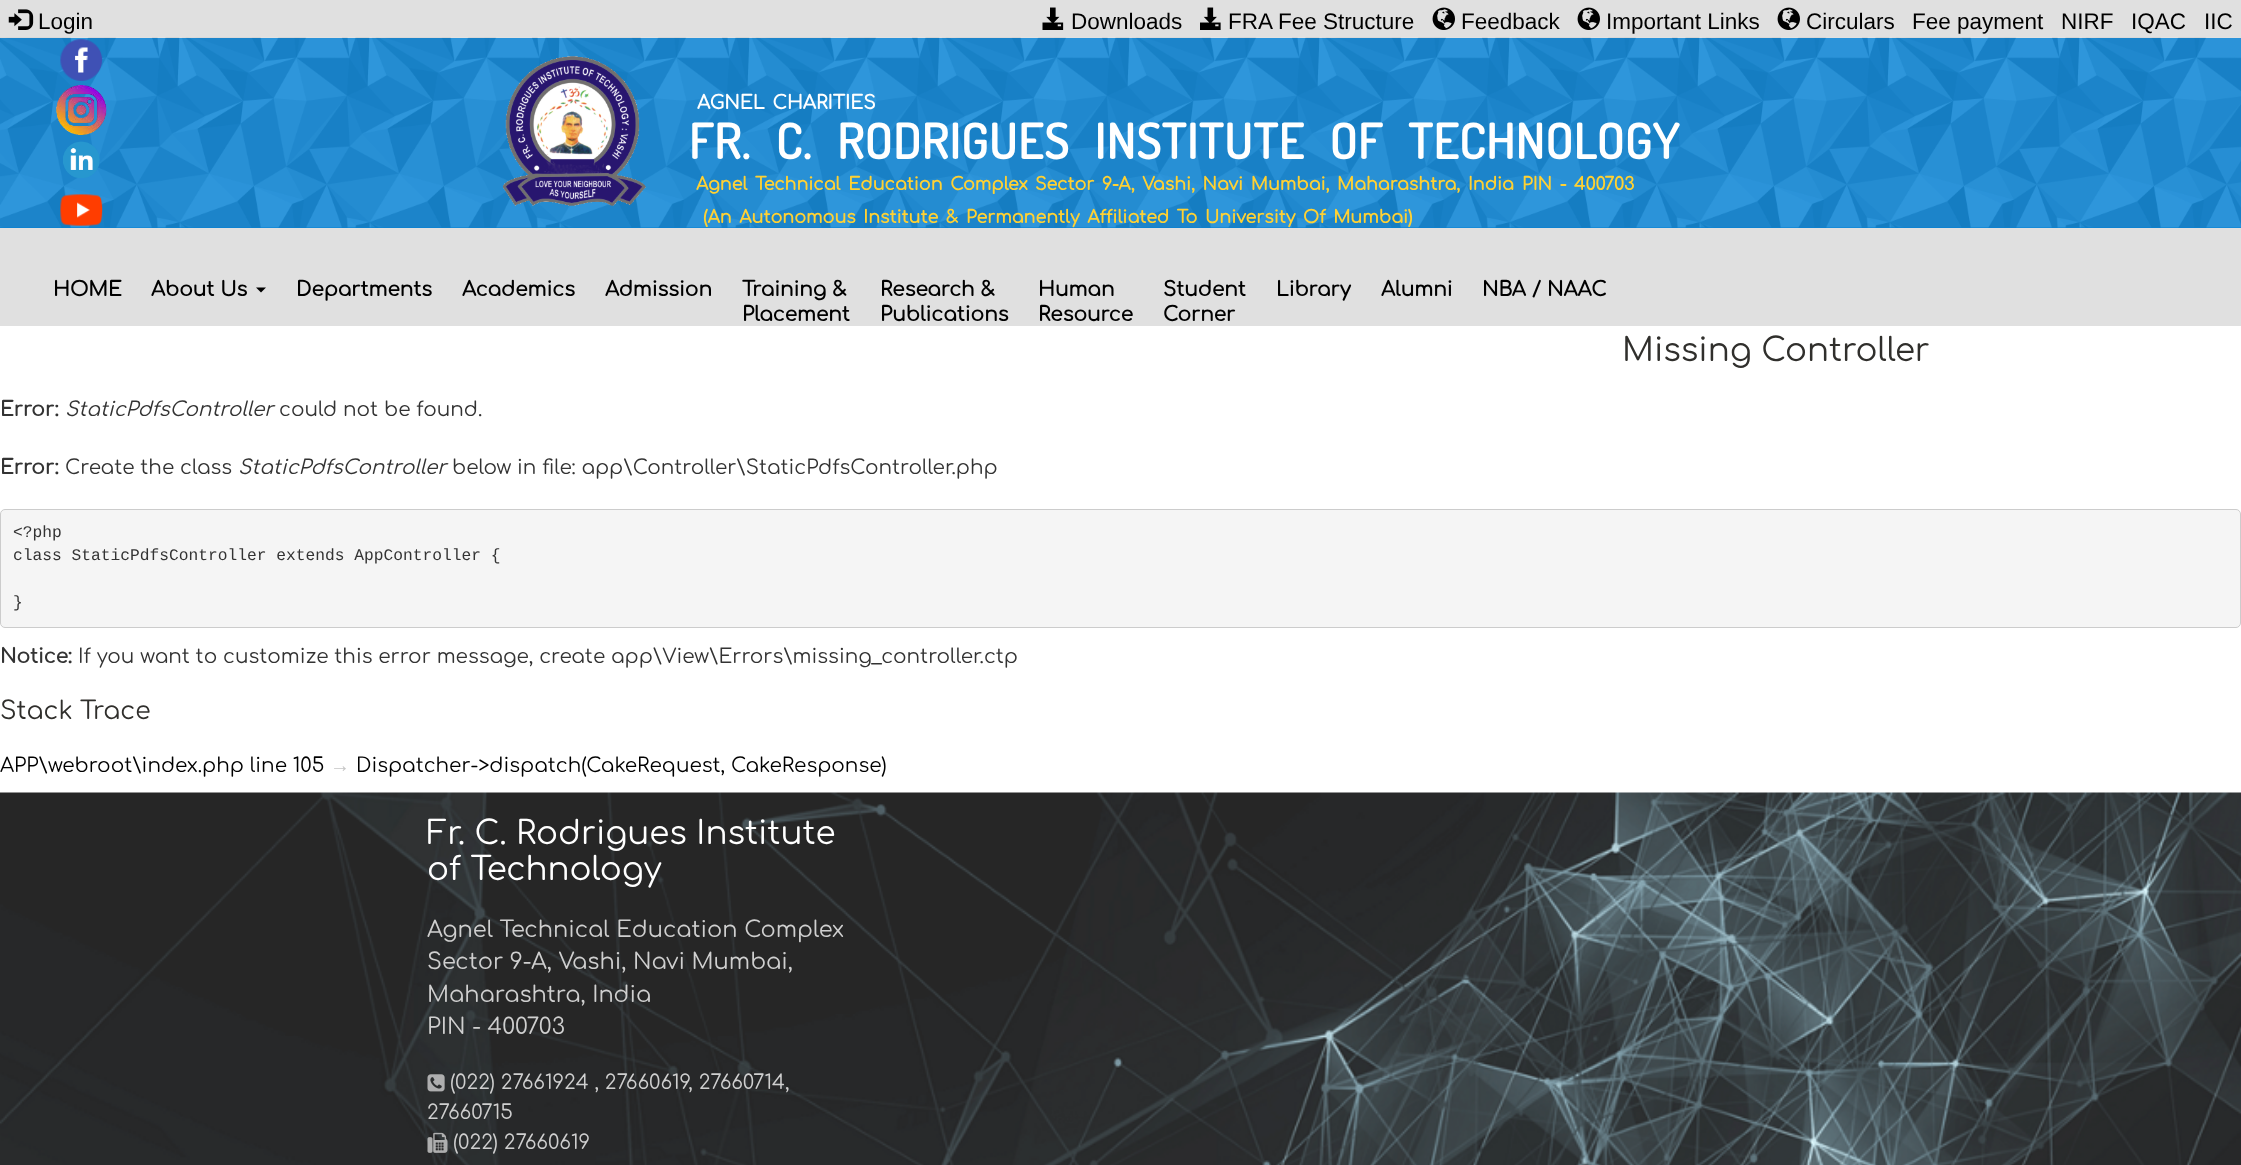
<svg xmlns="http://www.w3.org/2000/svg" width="2241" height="1165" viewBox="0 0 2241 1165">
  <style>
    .t1 { font: 22.5px Liberation Sans; fill: #000; }
    .t2 { font: bold 18.75px Comfortaa; fill: #fff; }
    .t3 { font: 600 50px Dosis; fill: #fff; }
    .t4 { font: bold 17.5px Comfortaa; fill: #ffd133; }
    .t5 { font: bold 20px Comfortaa; fill: #000; }
    .t6 { font: 32.5px Comfortaa; fill: #302f2c; }
    .t7 { font: bold 20px Comfortaa; fill: #333; }
    .t8 { font: italic 20px Comfortaa; fill: #333; }
    .t9 { font: 20px Comfortaa; fill: #333; }
    .t10 { font: 16.25px Liberation Mono; fill: #333; }
    .t11 { font: 25px Comfortaa; fill: #302f2c; }
    .t12 { font: 20px Comfortaa; fill: #000; }
    .t13 { font: 20px Liberation Sans; fill: #c6c6c6; }
    .t14 { font: 32.5px Comfortaa; fill: #fff; }
    .t15 { font: 22.5px Comfortaa; fill: #cfcfcf; }
    .t16 { font: 20px Comfortaa; fill: #cfcfcf; }
  </style>
  <rect width="100%" height="100%" fill="#fff"/>
  <rect x="0" y="0" width="2241" height="38" fill="#e0e0e0"/>
  <image x="8" y="9" width="26" height="21" href="images/1.png"/>
  <text x="38" y="29" class="t1">Login</text>
  <image x="1042" y="7" width="22" height="23" href="images/2.png"/>
  <text x="1071" y="29" class="t1">Downloads</text>
  <image x="1200" y="7" width="21" height="23" href="images/3.png"/>
  <text x="1228" y="29" class="t1">FRA Fee Structure</text>
  <image x="1432" y="7" width="23" height="23" href="images/4.png"/>
  <text x="1461" y="29" class="t1">Feedback</text>
  <image x="1577" y="7" width="23" height="23" href="images/4.png"/>
  <text x="1606" y="29" class="t1">Important Links</text>
  <image x="1777" y="7" width="23" height="23" href="images/4.png"/>
  <text x="1806" y="29" class="t1">Circulars</text>
  <text x="1912" y="29" class="t1">Fee payment</text>
  <text x="2061" y="29" class="t1">NIRF</text>
  <text x="2131" y="29" class="t1">IQAC</text>
  <text x="2204" y="29" class="t1">IIC</text>
  <rect x="0" y="38" width="2241" height="190" fill="#0080d5"/>
  <image x="0" y="37" width="2241" height="191" href="images/9.png"/>
  <image x="60" y="39" width="43" height="42" href="images/5.png"/>
  <image x="56" y="85" width="51" height="50" href="images/6.png"/>
  <image x="63" y="141" width="37" height="37" href="images/7.png"/>
  <image x="60" y="194" width="43" height="32" href="images/8.png"/>
  <image x="503" y="56" width="143" height="150" href="images/10.png"/>
  <text x="697" y="109" word-spacing="2.5" class="t2">AGNEL CHARITIES</text>
  <text x="689" y="159" word-spacing="15" class="t3">FR. C. RODRIGUES INSTITUTE OF TECHNOLOGY</text>
  <text x="696" y="190" word-spacing="2.5" class="t4">Agnel Technical Education Complex</text>
  <text x="1035" y="190" word-spacing="2.5" class="t4">Sector 9-A, Vashi, Navi Mumbai,</text>
  <text x="1337" y="190" word-spacing="2.5" class="t4">Maharashtra, India</text>
  <text x="1522" y="190" word-spacing="2.5" class="t4">PIN - 400703</text>
  <text x="703" y="223" word-spacing="2.5" class="t4">(An Autonomous Institute &amp; Permanently Affiliated To University Of Mumbai)</text>
  <rect x="0" y="228" width="2241" height="98" fill="#e0e0e0"/>
  <text x="53" y="296" class="t5">HOME</text>
  <text x="151" y="296" class="t5">About Us</text>
  <path d="M256 287.5H266L261 292.5Z" fill="#000"/>
  <text x="296" y="296" class="t5">Departments</text>
  <text x="462" y="296" class="t5">Academics</text>
  <text x="605" y="296" class="t5">Admission</text>
  <text x="742" y="296" class="t5">Training &amp;</text>
  <text x="742" y="321" class="t5">Placement</text>
  <text x="880" y="296" class="t5">Research &amp;</text>
  <text x="880" y="321" class="t5">Publications</text>
  <text x="1038" y="296" class="t5">Human</text>
  <text x="1038" y="321" class="t5">Resource</text>
  <text x="1163" y="296" class="t5">Student</text>
  <text x="1163" y="321" class="t5">Corner</text>
  <text x="1276" y="296" class="t5">Library</text>
  <text x="1381" y="296" class="t5">Alumni</text>
  <text x="1482" y="296" class="t5">NBA / NAAC</text>
  <text x="1622" y="361" class="t6">Missing Controller</text>
  <text x="0" y="416" class="t7">Error:</text>
  <text x="65" y="416" class="t8">StaticPdfsController</text>
  <text x="279" y="416" class="t9">could not be found.</text>
  <text x="0" y="474" class="t7">Error:</text>
  <text x="65" y="474" class="t9">Create the class</text>
  <text x="238" y="474" class="t8">StaticPdfsController</text>
  <text x="452" y="474" class="t9">below in file: app\Controller\StaticPdfsController.php</text>
  <rect x="0.5" y="509.5" width="2240" height="118" rx="4.5" fill="#f5f5f5" stroke="#ccc"/>
  <text x="13" y="537" class="t10">&lt;?php</text>
  <text x="13" y="560" class="t10">class StaticPdfsController extends AppController {</text>
  <text x="13" y="607" class="t10">}</text>
  <text x="0" y="663" class="t7">Notice:</text>
  <text x="78" y="663" class="t9">If you want to customize this error message, create app\View\Errors\missing_controller.ctp</text>
  <text x="0" y="719" class="t11">Stack Trace</text>
  <text x="0" y="772" class="t12">APP\webroot\index.php line 105</text>
  <text x="330" y="772" class="t13">→</text>
  <text x="356" y="772" class="t12">Dispatcher-&gt;dispatch(CakeRequest, CakeResponse)</text>
  <image x="0" y="792" width="2241" height="373" href="images/11.png"/>
  <text x="427" y="844" class="t14">Fr. C. Rodrigues Institute</text>
  <text x="427" y="880" class="t14">of Technology</text>
  <text x="427" y="937" class="t15">Agnel Technical Education Complex</text>
  <text x="427" y="969" class="t15">Sector 9-A, Vashi, Navi Mumbai,</text>
  <text x="427" y="1002" class="t15">Maharashtra, India</text>
  <text x="427" y="1034" class="t15">PIN - 400703</text>
  <image x="427" y="1074" width="18" height="18" href="images/12.png"/>
  <text x="450" y="1089" class="t16">(022) 27661924 , 27660619, 27660714,</text>
  <text x="427" y="1119" class="t16">27660715</text>
  <image x="427" y="1132" width="21" height="21" href="images/13.png"/>
  <text x="453" y="1149" class="t16">(022) 27660619</text>
</svg>
